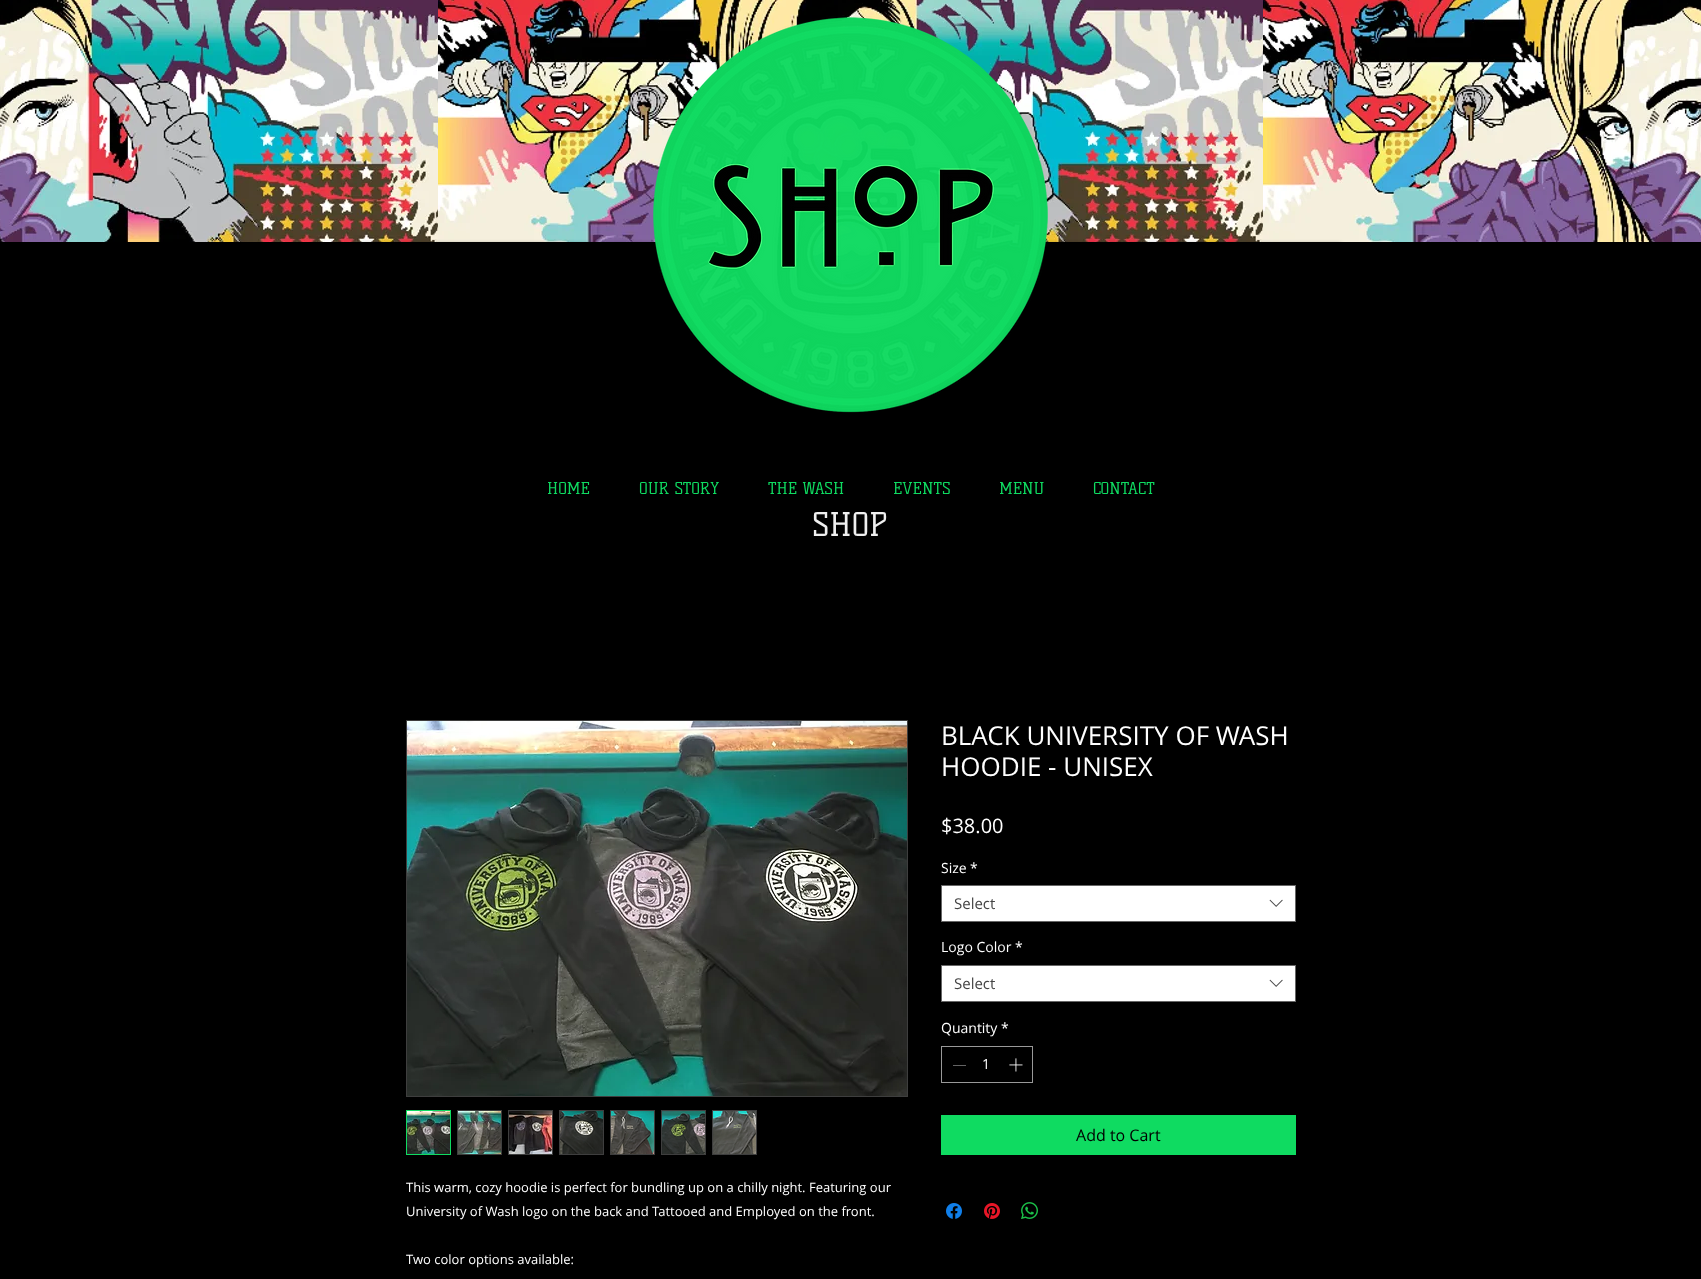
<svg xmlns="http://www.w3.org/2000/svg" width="1701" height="1279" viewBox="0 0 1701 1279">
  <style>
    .t1 { font: 16px Kelly Slab; fill: #0fdb61; }
    .t2 { font: 32px Kelly Slab; fill: #efefef; }
    .t3 { font: 26px Open Sans; fill: #fff; }
    .t4 { font: 20px Open Sans; fill: #fff; }
    .t5 { font: 14px Open Sans; fill: #fff; }
    .t6 { font: 15px Open Sans; fill: #444; }
    .t7 { font: 16px Open Sans; fill: #000; }
    .t8 { font: 13px Open Sans; fill: #fff; }
  </style>
  <defs>
    <clipPath id="clip1"><path d="M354 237H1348V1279H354ZM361 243H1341V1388H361Z" clip-rule="evenodd"/></clipPath>
  </defs>
  <rect width="100%" height="100%" fill="#000"/>
  <image x="0" y="0" width="1701" height="242" href="images/1.png"/>
  <g clip-path="url(#clip1)">
    <rect x="361" y="244" width="980" height="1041" fill="#00000099" filter="blur(2px)"/>
  </g>
  <text x="547" y="494" class="t1">HOME</text>
  <text x="639" y="494" class="t1">OUR STORY</text>
  <text x="768" y="494" class="t1">THE WASH</text>
  <text x="893" y="494" class="t1">EVENTS</text>
  <text x="999" y="494" class="t1">MENU</text>
  <text x="1093" y="494" class="t1">CONTACT</text>
  <image x="653" y="16" width="395" height="397" href="images/2.png"/>
  <text x="812" y="536" class="t2">SHOP</text>
  <text x="941" y="745" class="t3">BLACK UNIVERSITY OF WASH</text>
  <text x="941" y="776" class="t3">HOODIE - UNISEX</text>
  <text x="941" y="833" class="t4">$38.00</text>
  <text x="941" y="873" class="t5">Size</text>
  <text x="970" y="873" class="t5">*</text>
  <rect x="941.5" y="885.5" width="354" height="36" fill="#fff" stroke="#666"/>
  <text x="954" y="909" class="t6">Select</text>
  <image x="1269" y="899" width="14" height="8" href="images/3.png"/>
  <text x="941" y="952" class="t5">Logo Color</text>
  <text x="1015" y="952" class="t5">*</text>
  <rect x="941.5" y="965.5" width="354" height="36" fill="#fff" stroke="#666"/>
  <text x="954" y="989" class="t6">Select</text>
  <image x="1269" y="979" width="14" height="8" href="images/3.png"/>
  <text x="941" y="1033" class="t5">Quantity</text>
  <text x="1001" y="1033" class="t5">*</text>
  <rect x="941.5" y="1046.5" width="91" height="36" fill="none" stroke="#999"/>
  <rect x="953" y="1065" width="13" height="1" fill="#646464"/>
  <text x="982" y="1069" class="t5">1</text>
  <image x="1009" y="1058" width="14" height="14" href="images/4.png"/>
  <rect x="941" y="1115" width="355" height="40" fill="#0fdb61"/>
  <text x="1076" y="1141" class="t7">Add to Cart</text>
  <image x="946" y="1203" width="16" height="16" href="images/5.png"/>
  <image x="984" y="1203" width="16" height="16" href="images/6.png"/>
  <image x="1021" y="1202" width="17" height="17" href="images/7.png"/>
  <rect x="406.5" y="720.5" width="501" height="376" fill="none" stroke="#3e3e3e"/>
  <image x="407" y="721" width="500" height="375" href="images/8.png"/>
  <rect x="406.5" y="1110.5" width="44" height="44" fill="none" stroke="#0fdb61"/>
  <image x="407" y="1111" width="43" height="43" href="images/9.png"/>
  <rect x="457" y="1110" width="45" height="45" fill="#3e3e3e"/>
  <image x="458" y="1111" width="43" height="43" href="images/10.png"/>
  <rect x="508" y="1110" width="45" height="45" fill="#3e3e3e"/>
  <image x="509" y="1111" width="43" height="43" href="images/11.png"/>
  <rect x="559" y="1110" width="45" height="45" fill="#3e3e3e"/>
  <image x="560" y="1111" width="43" height="43" href="images/12.png"/>
  <rect x="610" y="1110" width="45" height="45" fill="#3e3e3e"/>
  <image x="611" y="1111" width="43" height="43" href="images/13.png"/>
  <rect x="661" y="1110" width="45" height="45" fill="#3e3e3e"/>
  <image x="662" y="1111" width="43" height="43" href="images/14.png"/>
  <rect x="712" y="1110" width="45" height="45" fill="#3e3e3e"/>
  <image x="713" y="1111" width="43" height="43" href="images/15.png"/>
  <text x="406" y="1192" class="t8">This warm, cozy hoodie is perfect for bundling up on a chilly night. Featuring our</text>
  <text x="406" y="1216" class="t8">University of Wash logo on the back and Tattooed and Employed on the front.</text>
  <text x="406" y="1264" class="t8">Two color options available:</text>
</svg>
